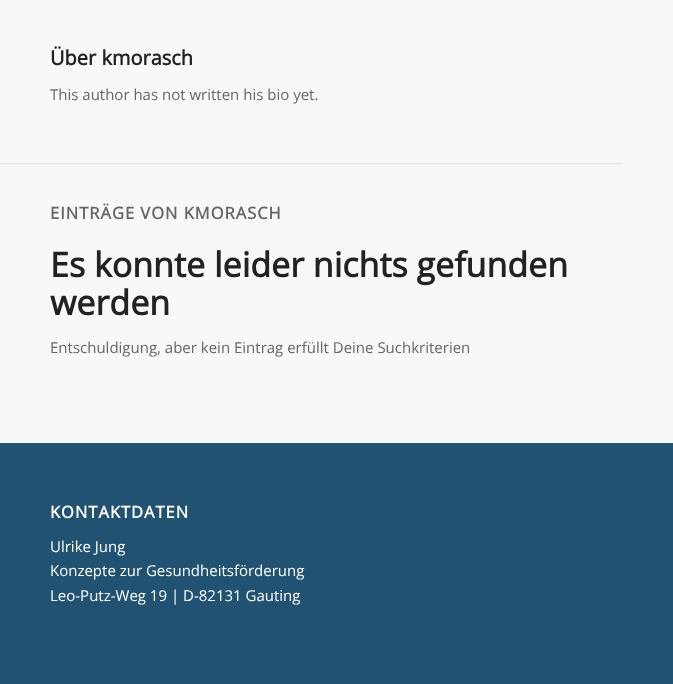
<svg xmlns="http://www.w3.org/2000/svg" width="673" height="684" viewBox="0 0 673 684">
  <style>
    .t1 { font: bold 20px Open Sans; fill: #222; }
    .t2 { font: 15px Open Sans; fill: #666; }
    .t3 { font: bold 16.5px Open Sans; letter-spacing: 1px; fill: #666; }
    .t4 { font: bold 34px Open Sans; fill: #222; }
    .t5 { font: bold 16.5px Open Sans; letter-spacing: 1px; fill: #fff; }
    .t6 { font: 15px Open Sans; fill: #fff; }
  </style>
  <rect width="100%" height="100%" fill="#f8f8f8"/>
  <text x="50" y="65" class="t1">Über kmorasch</text>
  <text x="50" y="100" class="t2">This author has not written his bio yet.</text>
  <rect x="0" y="163" width="623" height="1" fill="#e1e1e1"/>
  <text x="50" y="219" class="t3">EINTRÄGE VON KMORASCH</text>
  <text x="50" y="277" class="t4">Es konnte leider nichts gefunden</text>
  <text x="50" y="315" class="t4">werden</text>
  <text x="50" y="353" class="t2">Entschuldigung, aber kein Eintrag erfüllt Deine Suchkriterien</text>
  <rect x="0" y="444" width="673" height="240" fill="#215272"/>
  <rect x="0" y="443" width="673" height="1" fill="#1c5c7f"/>
  <text x="50" y="518" class="t5">KONTAKTDATEN</text>
  <text x="50" y="552" class="t6">Ulrike Jung</text>
  <text x="50" y="576" class="t6">Konzepte zur Gesundheitsförderung</text>
  <text x="50" y="601" class="t6">Leo-Putz-Weg 19 | D-82131 Gauting</text>
</svg>
